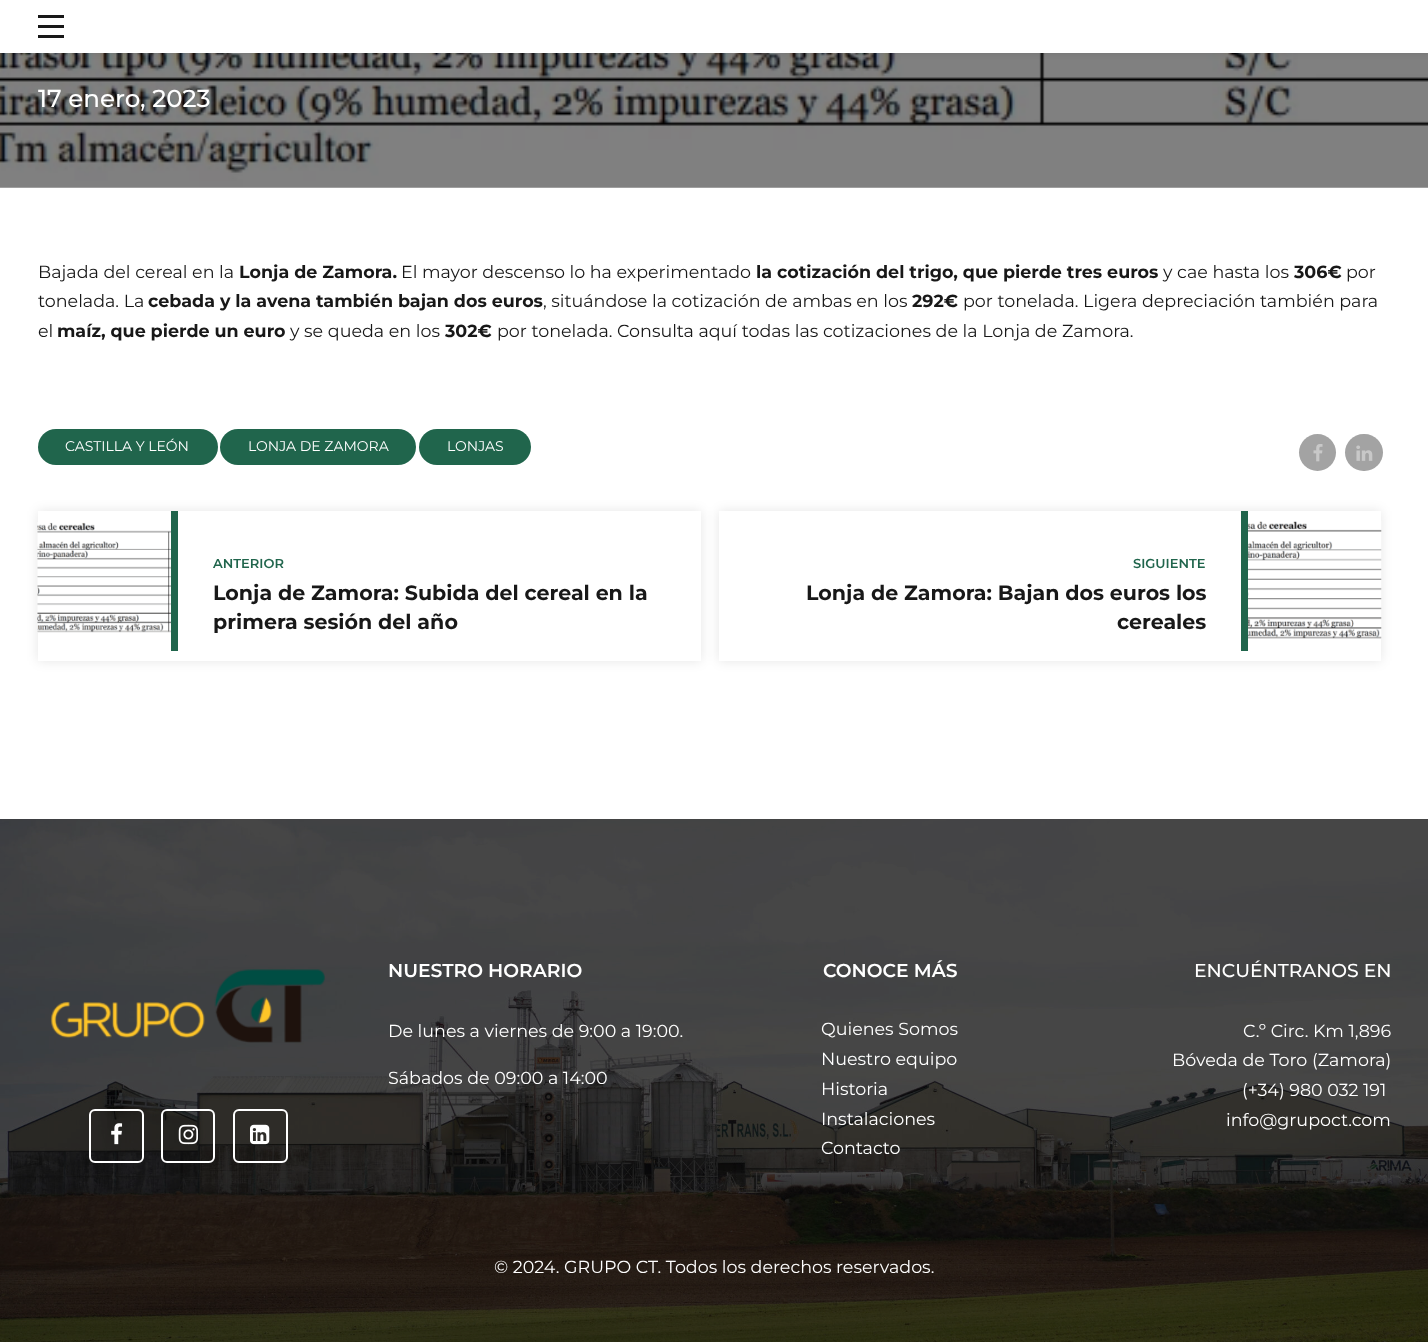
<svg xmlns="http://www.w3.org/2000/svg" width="1428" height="1342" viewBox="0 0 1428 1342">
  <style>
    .t1 { font: 500 24.5px Montserrat; fill: #fff; }
    .t2 { font: 17.5px Montserrat; fill: #181818; }
    .t3 { font: bold 17.5px Montserrat; fill: #181818; }
    .t4 { font: 14px Montserrat; fill: #fff; }
    .t5 { font: 600 13px Montserrat; fill: #20654c; }
    .t6 { font: bold 20.6px Montserrat; fill: #181818; }
    .t7 { font: 600 18.75px Montserrat; fill: #fff; }
    .t8 { font: 17.5px Montserrat; fill: #fff; }
    .t9 { font: 500 18.75px Montserrat; fill: #fff; }
  </style>
  <rect width="100%" height="100%" fill="#fff"/>
  <image x="0" y="53" width="1428" height="135" href="images/1.png"/>
  <rect x="0" y="0" width="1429" height="53" fill="#0000001a" filter="blur(3px)"/>
  <rect x="0" y="0" width="1428" height="53" fill="#fff"/>
  <rect x="38" y="15" width="26" height="3" fill="#181818"/>
  <rect x="38" y="25" width="26" height="3" fill="#181818"/>
  <rect x="38" y="35" width="26" height="3" fill="#181818"/>
  <text x="38" y="107" class="t1">17 enero, 2023</text>
  <text x="38" y="278" class="t2">Bajada del cereal en la</text>
  <text x="239" y="278" class="t3">Lonja de Zamora.</text>
  <text x="401" y="278" class="t2">El mayor descenso lo ha experimentado</text>
  <text x="756" y="278" class="t3">la cotización del trigo, que pierde tres euros</text>
  <text x="1163" y="278" class="t2">y cae hasta los</text>
  <text x="1294" y="278" class="t3">306€</text>
  <text x="1346" y="278" class="t2">por</text>
  <text x="38" y="307" class="t2">tonelada. La</text>
  <text x="148" y="307" class="t3">cebada y la avena también bajan dos euros</text>
  <text x="543" y="307" class="t2">, situándose la cotización de ambas en los</text>
  <text x="912" y="307" class="t3">292€</text>
  <text x="963" y="307" class="t2">por tonelada. Ligera depreciación también para</text>
  <text x="38" y="337" class="t2">el</text>
  <text x="57" y="337" class="t3">maíz, que pierde un euro</text>
  <text x="290" y="337" class="t2">y se queda en los</text>
  <text x="445" y="337" class="t3">302€</text>
  <text x="497" y="337" class="t2">por tonelada. Consulta aquí todas las cotizaciones de la Lonja de Zamora.</text>
  <rect x="38" y="429" width="180" height="36" rx="18" fill="#20654c"/>
  <text x="65" y="451" class="t4">CASTILLA Y LEÓN</text>
  <rect x="220" y="429" width="196" height="36" rx="18" fill="#20654c"/>
  <text x="248" y="451" class="t4">LONJA DE ZAMORA</text>
  <rect x="419" y="429" width="112" height="36" rx="18" fill="#20654c"/>
  <text x="447" y="451" class="t4">LONJAS</text>
  <circle cx="1317.5" cy="452.5" r="18.5" fill="#a3a3a3"/>
  <image x="1313" y="444" width="10" height="18" href="images/2.png"/>
  <rect x="1345" y="434" width="38" height="37" rx="18.5" fill="#a3a3a3"/>
  <image x="1356" y="445" width="17" height="16" href="images/3.png"/>
  <rect x="38" y="511" width="663" height="150" fill="#0000001a" filter="blur(6px)"/>
  <rect x="38" y="511" width="663" height="150" fill="#fff"/>
  <image x="37" y="522" width="134" height="111" href="images/4.png"/>
  <rect x="171" y="511" width="7" height="140" fill="#20654c"/>
  <text x="213" y="568" class="t5">ANTERIOR</text>
  <text x="213" y="600" class="t6">Lonja de Zamora: Subida del cereal en la</text>
  <text x="213" y="629" class="t6">primera sesión del año</text>
  <rect x="719" y="511" width="662" height="150" fill="#0000001a" filter="blur(6px)"/>
  <rect x="719" y="511" width="662" height="150" fill="#fff"/>
  <text x="1133" y="568" class="t5">SIGUIENTE</text>
  <text x="806" y="600" class="t6">Lonja de Zamora: Bajan dos euros los</text>
  <text x="1117" y="629" class="t6">cereales</text>
  <image x="1248" y="521" width="134" height="118" href="images/5.png"/>
  <rect x="1241" y="511" width="7" height="140" fill="#20654c"/>
  <image x="0" y="819" width="1428" height="523" href="images/6.png"/>
  <image x="50" y="969" width="275" height="74" href="images/7.png"/>
  <rect x="90" y="1110" width="53" height="52" rx="5" fill="none" stroke="#fff" stroke-width="2"/>
  <image x="111" y="1123" width="12" height="22" href="images/8.png"/>
  <rect x="162" y="1110" width="52" height="52" rx="5" fill="none" stroke="#fff" stroke-width="2"/>
  <image x="178" y="1124" width="21" height="21" href="images/9.png"/>
  <rect x="234" y="1110" width="53" height="52" rx="5" fill="none" stroke="#fff" stroke-width="2"/>
  <image x="250" y="1124" width="20" height="21" href="images/10.png"/>
  <text x="388" y="977" class="t7">NUESTRO HORARIO</text>
  <text x="388" y="1037" class="t8">De lunes a viernes de 9:00 a 19:00.</text>
  <text x="388" y="1084" class="t8">Sábados de 09:00 a 14:00</text>
  <text x="823" y="977" class="t7">CONOCE MÁS</text>
  <text x="821" y="1035" class="t8">Quienes Somos</text>
  <text x="821" y="1065" class="t8">Nuestro equipo</text>
  <text x="821" y="1095" class="t8">Historia</text>
  <text x="821" y="1125" class="t8">Instalaciones</text>
  <text x="821" y="1154" class="t8">Contacto</text>
  <text x="1194" y="977" class="t9">ENCUÉNTRANOS EN</text>
  <text x="1243" y="1037" class="t8">C.º Circ. Km 1,896</text>
  <text x="1172" y="1066" class="t8">Bóveda de Toro (Zamora)</text>
  <text x="1242" y="1096" class="t8">(+34) 980 032 191</text>
  <text x="1226" y="1126" class="t8">info@grupoct.com</text>
  <text x="494" y="1273" class="t8">© 2024. GRUPO CT. Todos los derechos reservados.</text>
</svg>
